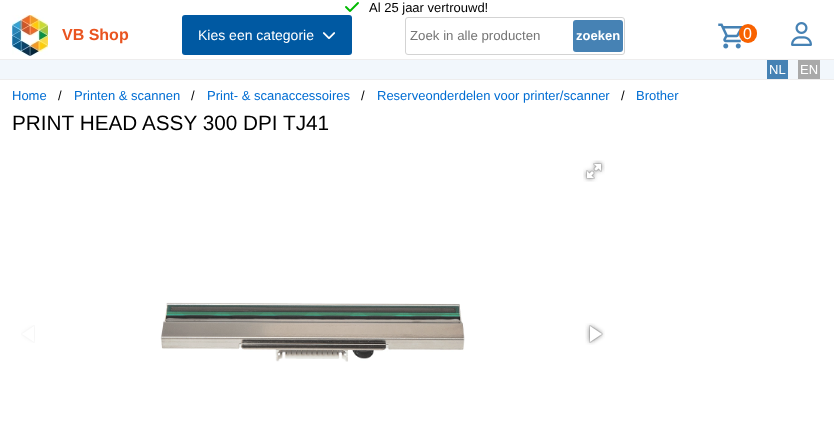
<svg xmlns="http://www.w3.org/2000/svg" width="834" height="429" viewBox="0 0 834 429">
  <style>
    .t1 { font: 13px Liberation Sans; fill: #000; }
    .t2 { font: bold 16px Liberation Sans; fill: #e95420; }
    .t3 { font: 14px Liberation Sans; fill: #fff; }
    .t4 { font: 13.25px Liberation Sans; fill: #757575; }
    .t5 { font: bold 13px Liberation Sans; fill: #fff; }
    .t6 { font: 16px Liberation Sans; fill: #fff; }
    .t7 { font: 13px Liberation Sans; fill: #fff; }
    .t8 { font: 13px Liberation Sans; fill: #006dd3; }
    .t9 { font: 20.75px Liberation Sans; fill: #000; }
  </style>
  <rect width="100%" height="100%" fill="#fff"/>
  <rect x="0" y="79" width="834" height="1" fill="#eeeded"/>
  <image x="345" y="2" width="14" height="10" href="images/1.png"/>
  <text x="369" y="12" class="t1">Al 25 jaar vertrouwd!</text>
  <rect x="0" y="59" width="834" height="1" fill="#eeeded"/>
  <image x="12" y="15" width="36" height="41" href="images/2.png"/>
  <text x="62" y="40" class="t2">VB Shop</text>
  <rect x="182" y="15" width="170" height="40" rx="3" fill="#0059a2"/>
  <text x="198" y="40" class="t3">Kies een categorie</text>
  <image x="323" y="32" width="12" height="7" href="images/3.png"/>
  <rect x="405.5" y="17.5" width="219" height="37" rx="2.5" fill="none" stroke="#d3d3d3"/>
  <text x="410" y="40" class="t4">Zoek in alle producten</text>
  <rect x="573" y="20" width="50" height="32" rx="3" fill="#4682b4"/>
  <text x="576" y="40" class="t5">zoeken</text>
  <image x="718" y="23" width="25" height="26" href="images/4.png"/>
  <rect x="739" y="24" width="18" height="19" rx="9" fill="#f86200"/>
  <text x="743" y="39" class="t6">0</text>
  <image x="791" y="22" width="21" height="24" href="images/5.png"/>
  <rect x="0" y="60" width="834" height="19" fill="#f2f7fc"/>
  <rect x="767" y="60" width="21" height="19" fill="#4682b4"/>
  <text x="769" y="74" class="t7">NL</text>
  <rect x="798" y="60" width="22" height="19" fill="#a9a9a9"/>
  <text x="800" y="74" class="t7">EN</text>
  <text x="12" y="100" class="t8">Home</text>
  <text x="58" y="100" class="t1">/</text>
  <text x="74" y="100" class="t8">Printen &amp; scannen</text>
  <text x="191" y="100" class="t1">/</text>
  <text x="207" y="100" class="t8">Print- &amp; scanaccessoires</text>
  <text x="361" y="100" class="t1">/</text>
  <text x="377" y="100" class="t8">Reserveonderdelen voor printer/scanner</text>
  <text x="621" y="100" class="t1">/</text>
  <text x="636" y="100" class="t8">Brother</text>
  <text x="12" y="130" class="t9">PRINT HEAD ASSY 300 DPI TJ41</text>
  <image x="583" y="160" width="22" height="22" href="images/6.png"/>
  <image x="21" y="325" width="14" height="18" href="images/7.png"/>
  <image x="160" y="302" width="305" height="60" href="images/8.png"/>
  <image x="585" y="323" width="20" height="22" href="images/9.png"/>
</svg>
